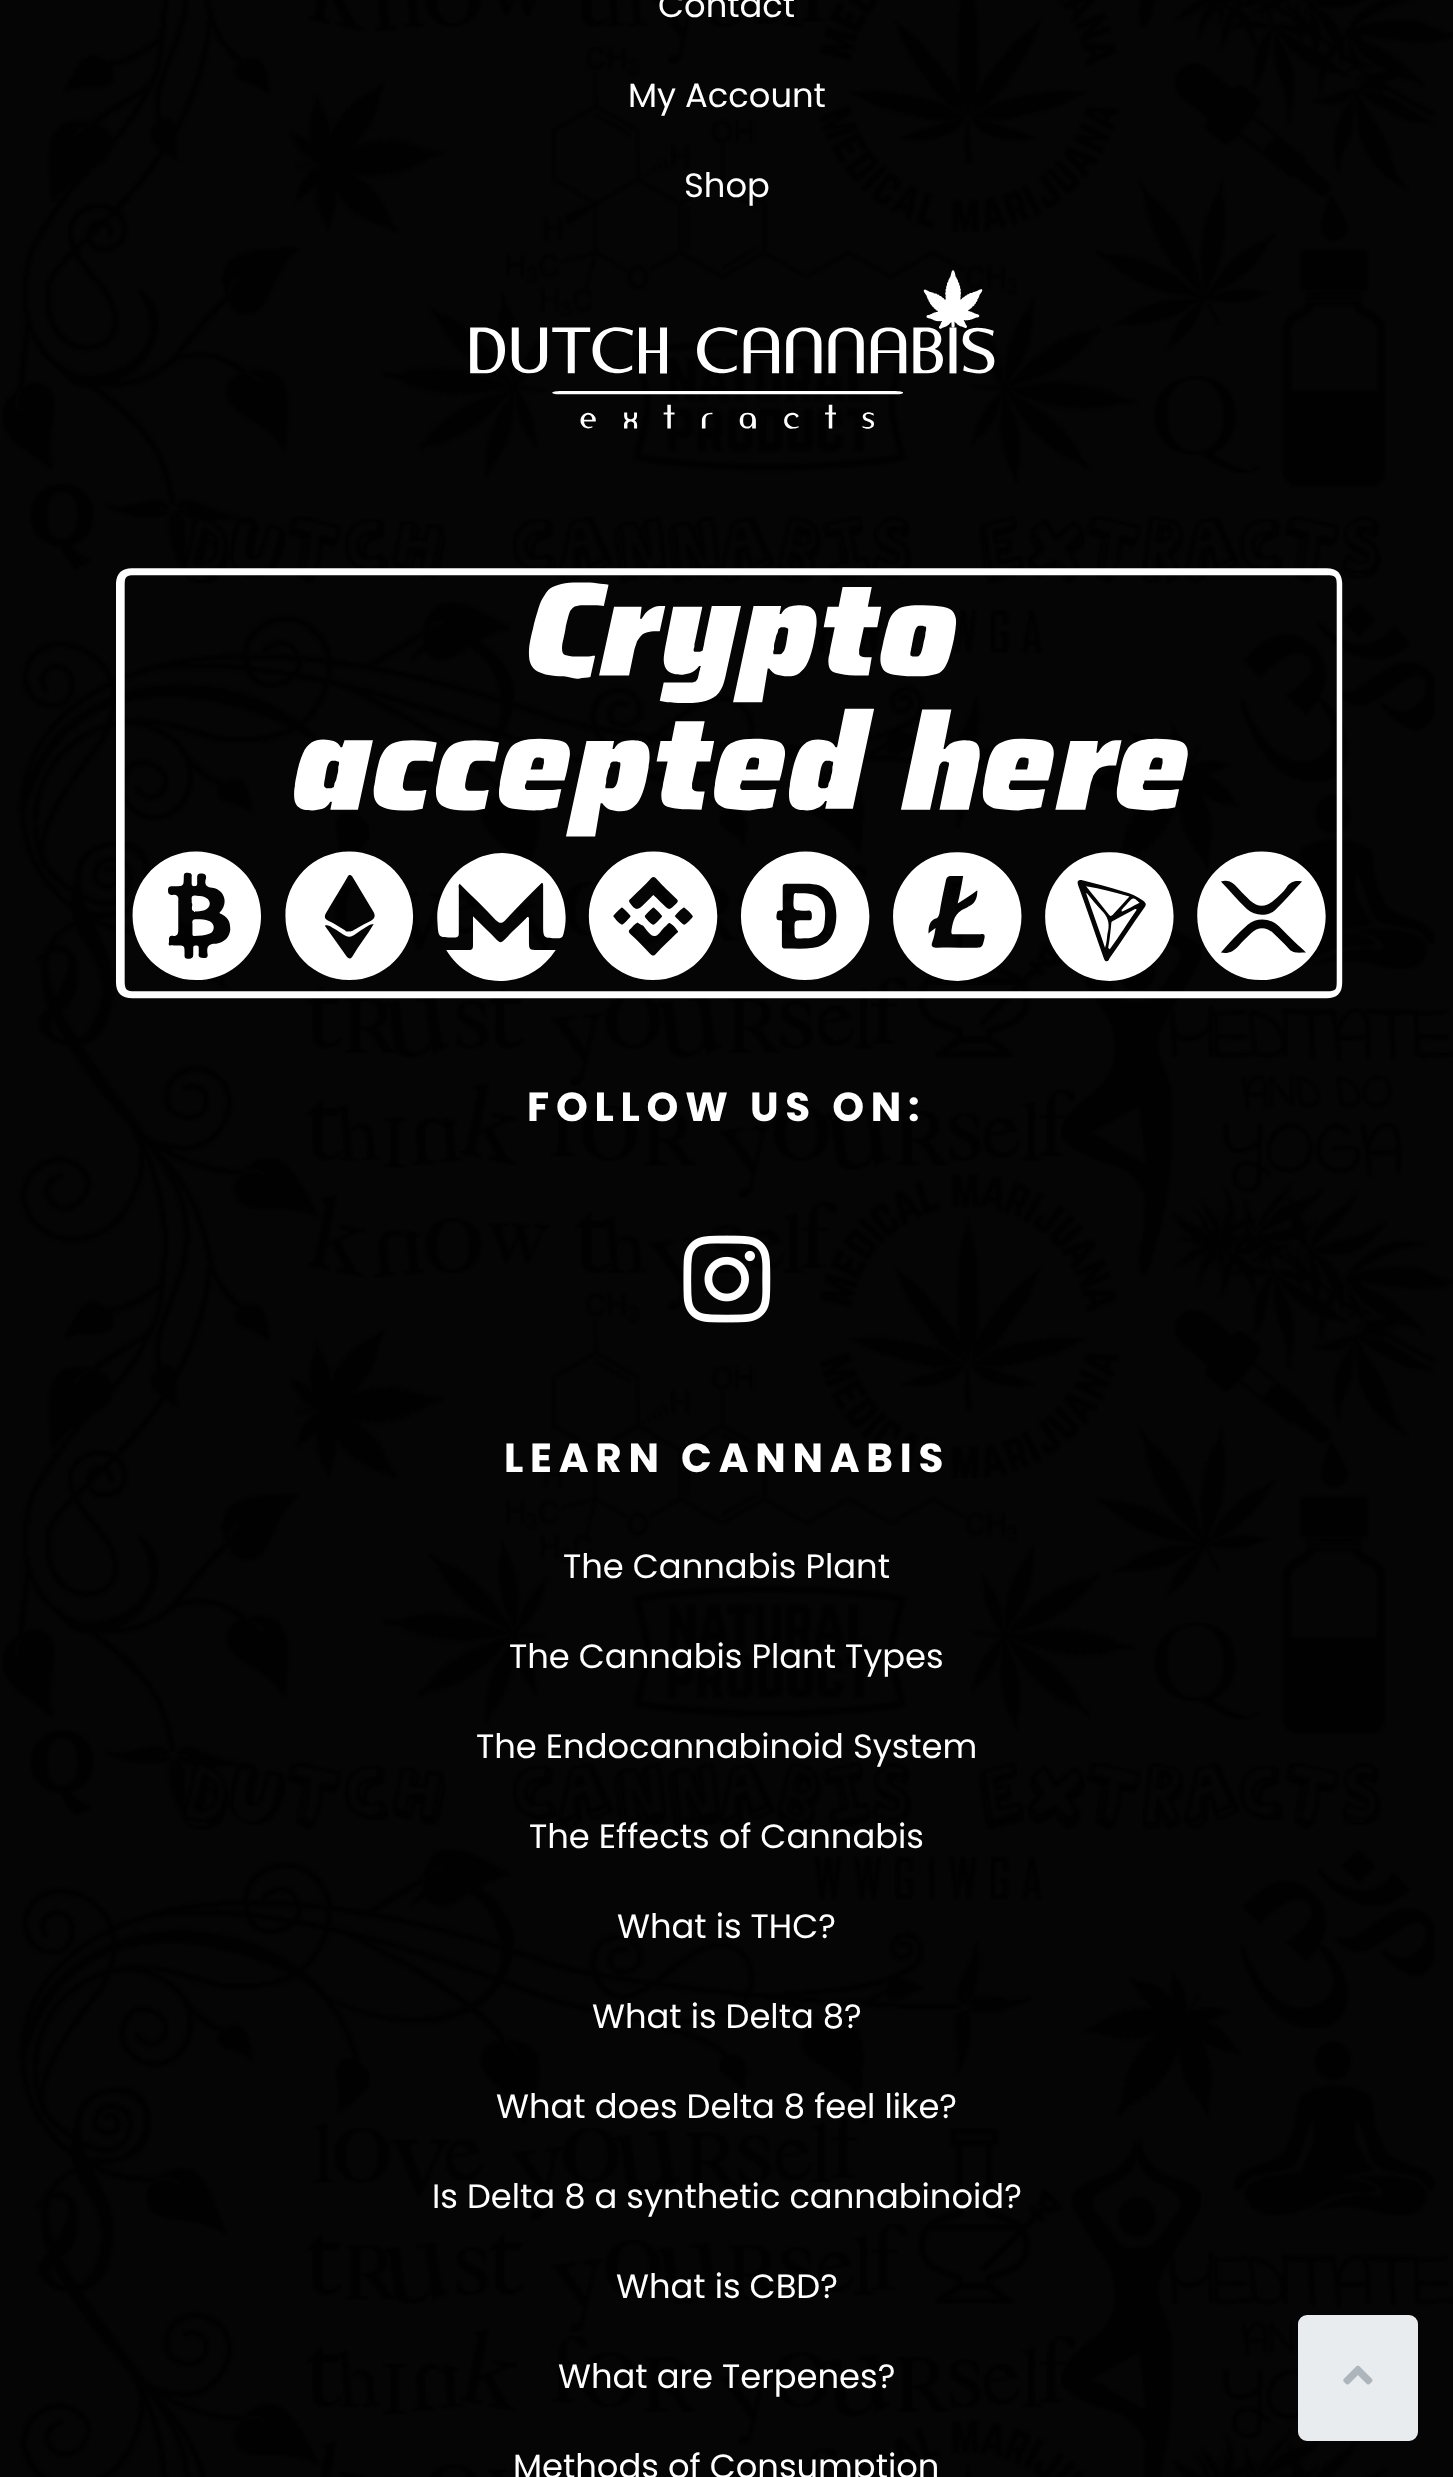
<svg xmlns="http://www.w3.org/2000/svg" width="1453" height="2477" viewBox="0 0 1453 2477">
  <style>
    .t1 { font: 33.75px Poppins; fill: #fff; }
    .t2 { font: bold 40.5px Poppins; letter-spacing: 6.75px; fill: #fff; }
  </style>
  <rect width="100%" height="100%" fill="#050505"/>
  <image x="1" y="0" width="1452" height="2477" href="images/1.png"/>
  <text x="658" y="17" class="t1">Contact</text>
  <text x="628" y="107" class="t1">My Account</text>
  <text x="684" y="197" class="t1">Shop</text>
  <image x="470" y="270" width="525" height="159" href="images/2.png"/>
  <image x="116" y="568" width="1227" height="431" href="images/3.png"/>
  <text x="527" y="1121" class="t2">FOLLOW US ON:</text>
  <image x="683" y="1235" width="88" height="88" href="images/4.png"/>
  <text x="504" y="1472" class="t2">LEARN CANNABIS</text>
  <text x="563" y="1578" class="t1">The Cannabis Plant</text>
  <text x="509" y="1668" class="t1">The Cannabis Plant Types</text>
  <text x="476" y="1758" class="t1">The Endocannabinoid System</text>
  <text x="529" y="1848" class="t1">The Effects of Cannabis</text>
  <text x="617" y="1938" class="t1">What is THC?</text>
  <text x="592" y="2028" class="t1">What is Delta 8?</text>
  <text x="496" y="2118" class="t1">What does Delta 8 feel like?</text>
  <text x="432" y="2208" class="t1">Is Delta 8 a synthetic cannabinoid?</text>
  <text x="616" y="2298" class="t1">What is CBD?</text>
  <text x="558" y="2388" class="t1">What are Terpenes?</text>
  <text x="513" y="2478" class="t1">Methods of Consumption</text>
  <rect x="1299" y="2316" width="118" height="124" rx="8" fill="#e9ecef" stroke="#e9ecef" stroke-width="2"/>
  <image x="1343" y="2365" width="30" height="20" href="images/5.png"/>
</svg>
